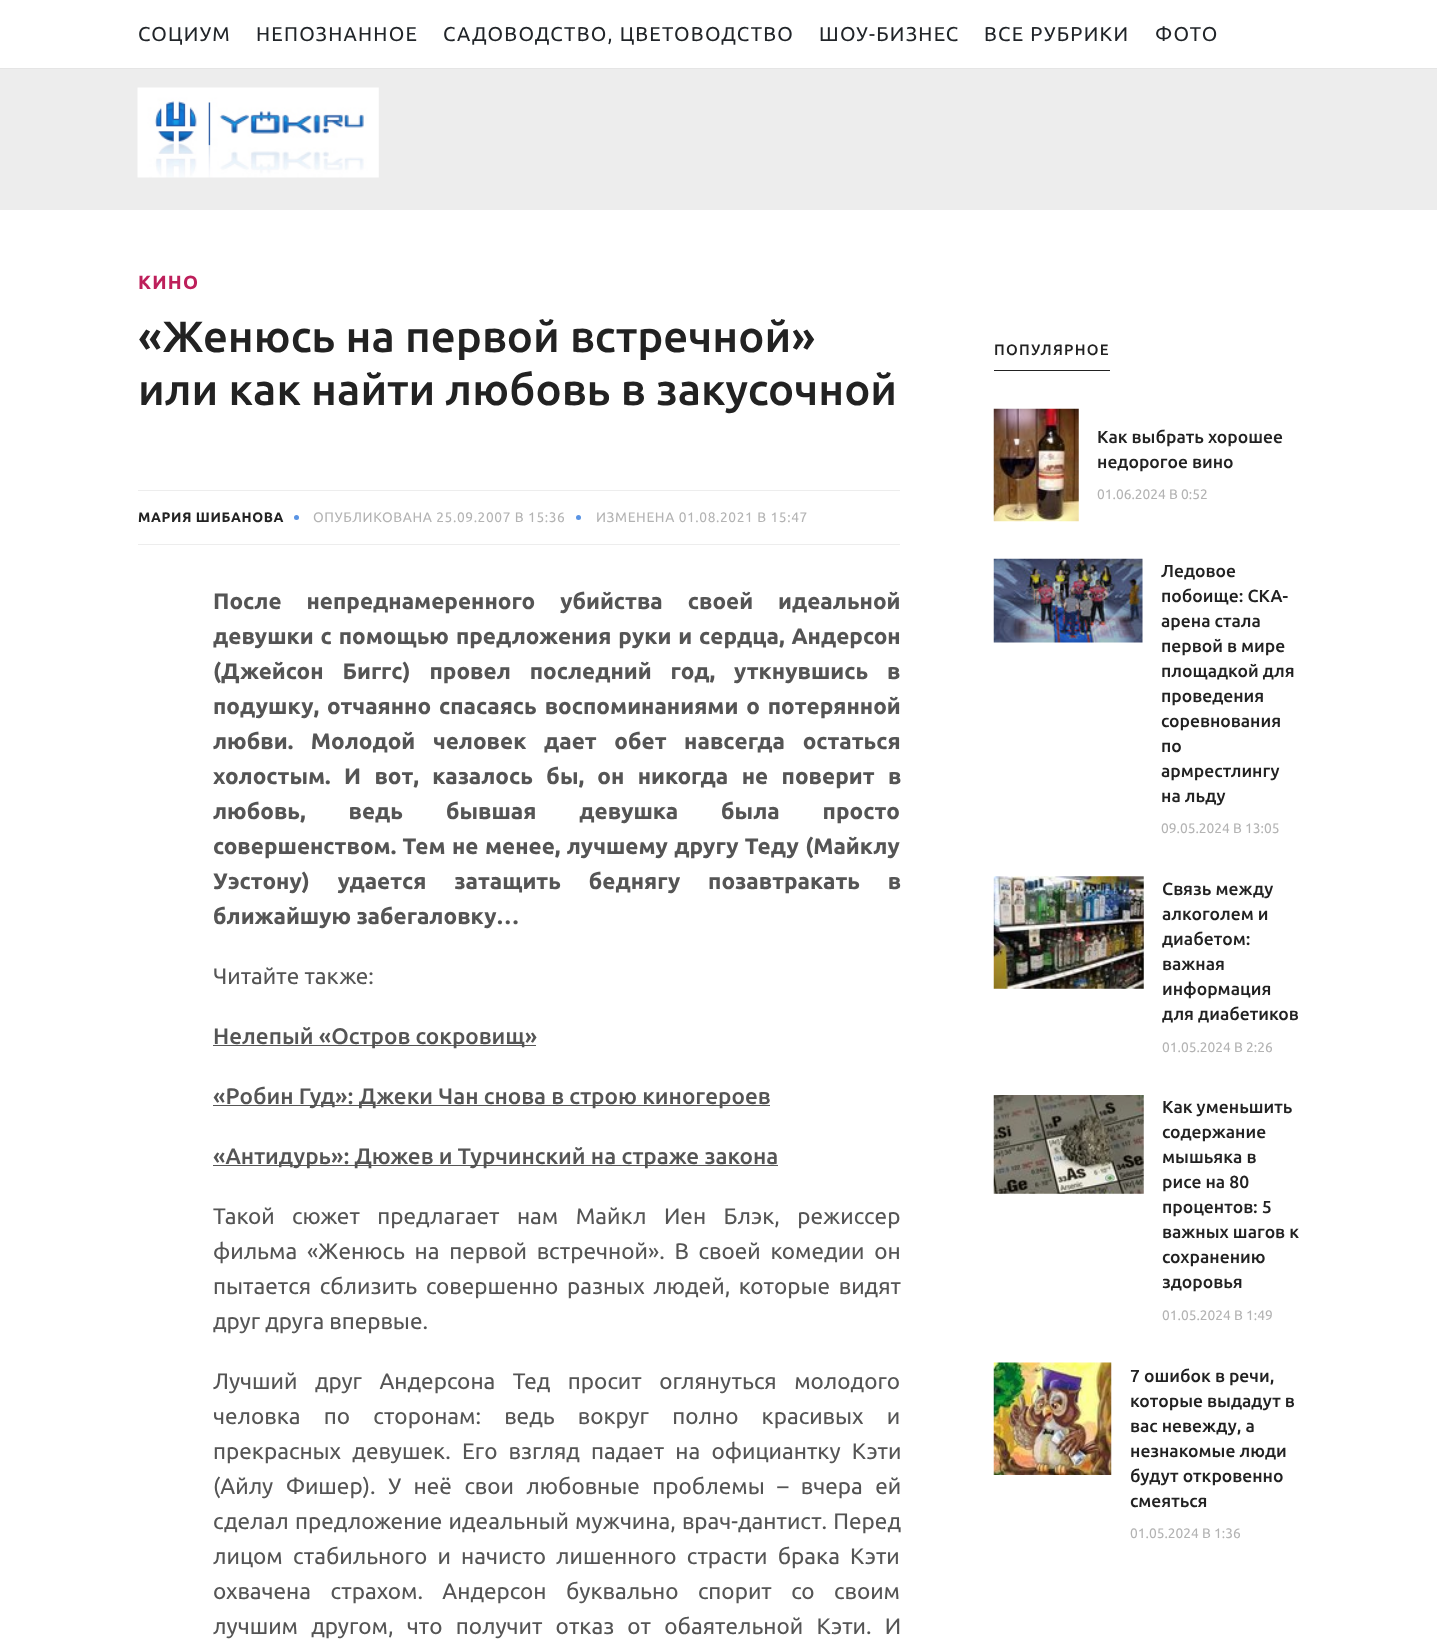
<svg xmlns="http://www.w3.org/2000/svg" width="1437" height="1643" viewBox="0 0 1437 1643">
  <style>
    .t1 { font: 20px Ubuntu; letter-spacing: 1.25px; fill: #212529; }
    .t2 { font: bold 19px Ubuntu; letter-spacing: 1.25px; fill: #be1f5b; }
    .t3 { font: 500 43.75px Ubuntu; fill: #222; }
    .t4 { font: bold 13.75px Ubuntu; letter-spacing: 0.6px; fill: #222; }
    .t5 { font: 13.75px Ubuntu; letter-spacing: 0.6px; fill: #b3b3b3; }
    .t6 { font: bold 22.5px Ubuntu; fill: #555; }
    .t7 { font: 22.5px Ubuntu; fill: #555; }
    .t8 { font: 500 22.5px Ubuntu; fill: #555; }
    .t9 { font: 500 15px Ubuntu; letter-spacing: 1.25px; fill: #222; }
    .t10 { font: 500 17.5px Ubuntu; fill: #222; }
    .t11 { font: 13.75px Ubuntu; fill: #b3b3b3; }
  </style>
  <rect width="100%" height="100%" fill="#fff"/>
  <rect x="0" y="68" width="1437" height="1" fill="#e5e5e5"/>
  <text x="138" y="41" class="t1">СОЦИУМ</text>
  <text x="256" y="41" class="t1">НЕПОЗНАННОЕ</text>
  <text x="443" y="41" class="t1">САДОВОДСТВО, ЦВЕТОВОДСТВО</text>
  <text x="819" y="41" class="t1">ШОУ-БИЗНЕС</text>
  <text x="984" y="41" class="t1">ВСЕ РУБРИКИ</text>
  <text x="1155" y="41" class="t1">ФОТО</text>
  <rect x="0" y="69" width="1437" height="141" fill="#ededed"/>
  <image x="137" y="87" width="242" height="91" href="images/1.png"/>
  <text x="138" y="289" class="t2">КИНО</text>
  <text x="138" y="352" class="t3">«Женюсь на первой встречной»</text>
  <text x="138" y="405" class="t3">или как найти любовь в закусочной</text>
  <rect x="138" y="490" width="762" height="1" fill="#ededed"/>
  <rect x="138" y="544" width="762" height="1" fill="#ededed"/>
  <text x="138" y="522" class="t4">МАРИЯ ШИБАНОВА</text>
  <circle cx="296.5" cy="517.5" r="2.5" fill="#5a94e4"/>
  <text x="313" y="522" class="t5">ОПУБЛИКОВАНА 25.09.2007 В 15:36</text>
  <circle cx="578.5" cy="517.5" r="2.5" fill="#5a94e4"/>
  <text x="596" y="522" class="t5">ИЗМЕНЕНА 01.08.2021 В 15:47</text>
  <text x="213" y="609" word-spacing="19.5" class="t6">После непреднамеренного убийства своей идеальной</text>
  <text x="213" y="644" word-spacing="1.5" class="t6">девушки с помощью предложения руки и сердца, Андерсон</text>
  <text x="213" y="679" word-spacing="13.5" class="t6">(Джейсон Биггс) провел последний год, уткнувшись в</text>
  <text x="213" y="714" word-spacing="2.5" class="t6">подушку, отчаянно спасаясь воспоминаниями о потерянной</text>
  <text x="213" y="749" word-spacing="12.25" class="t6">любви. Молодой человек дает обет навсегда остаться</text>
  <text x="213" y="784" word-spacing="8" class="t6">холостым. И вот, казалось бы, он никогда не поверит в</text>
  <text x="213" y="819" word-spacing="37.5" class="t6">любовь, ведь бывшая девушка была просто</text>
  <text x="213" y="854" word-spacing="1" class="t6">совершенством. Тем не менее, лучшему другу Теду (Майклу</text>
  <text x="213" y="889" word-spacing="22.5" class="t6">Уэстону) удается затащить беднягу позавтракать в</text>
  <text x="213" y="924" class="t6">ближайшую забегаловку…</text>
  <text x="213" y="984" class="t7">Читайте также:</text>
  <rect x="213" y="1045" width="323" height="1" fill="#555"/>
  <text x="213" y="1044" class="t8">Нелепый «Остров сокровищ»</text>
  <rect x="213" y="1105" width="557" height="1" fill="#555"/>
  <text x="213" y="1104" class="t8">«Робин Гуд»: Джеки Чан снова в строю киногероев</text>
  <rect x="213" y="1165" width="565" height="1" fill="#555"/>
  <text x="213" y="1164" class="t8">«Антидурь»: Дюжев и Турчинский на страже закона</text>
  <text x="213" y="1224" word-spacing="12.25" class="t7">Такой сюжет предлагает нам Майкл Иен Блэк, режиссер</text>
  <text x="213" y="1259" word-spacing="4.5" class="t7">фильма «Женюсь на первой встречной». В своей комедии он</text>
  <text x="213" y="1294" word-spacing="3.5" class="t7">пытается сблизить совершенно разных людей, которые видят</text>
  <text x="213" y="1329" class="t7">друг друга впервые.</text>
  <text x="213" y="1389" word-spacing="12.25" class="t7">Лучший друг Андерсона Тед просит оглянуться молодого</text>
  <text x="213" y="1424" word-spacing="18" class="t7">человка по сторонам: ведь вокруг полно красивых и</text>
  <text x="213" y="1459" word-spacing="6" class="t7">прекрасных девушек. Его взгляд падает на официантку Кэти</text>
  <text x="213" y="1494" word-spacing="7.25" class="t7">(Айлу Фишер). У неё свои любовные проблемы – вчера ей</text>
  <text x="213" y="1529" word-spacing="1" class="t7">сделал предложение идеальный мужчина, врач-дантист. Перед</text>
  <text x="213" y="1564" word-spacing="5" class="t7">лицом стабильного и начисто лишенного страсти брака Кэти</text>
  <text x="213" y="1599" word-spacing="14.25" class="t7">охвачена страхом. Андерсон буквально спорит со своим</text>
  <text x="213" y="1634" word-spacing="8" class="t7">лучшим другом, что получит отказ от обаятельной Кэти. И</text>
  <rect x="994" y="370" width="116" height="1" fill="#222"/>
  <text x="994" y="355" class="t9">ПОПУЛЯРНОЕ</text>
  <image x="993" y="408" width="86" height="114" href="images/2.png"/>
  <text x="1097" y="443" class="t10">Как выбрать хорошее</text>
  <text x="1097" y="468" class="t10">недорогое вино</text>
  <text x="1097" y="499" class="t11">01.06.2024 В 0:52</text>
  <image x="993" y="558" width="150" height="85" href="images/3.png"/>
  <text x="1161" y="577" class="t10">Ледовое</text>
  <text x="1161" y="602" class="t10">побоище: СКА-</text>
  <text x="1161" y="627" class="t10">арена стала</text>
  <text x="1161" y="652" class="t10">первой в мире</text>
  <text x="1161" y="677" class="t10">площадкой для</text>
  <text x="1161" y="702" class="t10">проведения</text>
  <text x="1161" y="727" class="t10">соревнования</text>
  <text x="1161" y="752" class="t10">по</text>
  <text x="1161" y="777" class="t10">армрестлингу</text>
  <text x="1161" y="802" class="t10">на льду</text>
  <text x="1161" y="833" class="t11">09.05.2024 В 13:05</text>
  <image x="993" y="876" width="151" height="113" href="images/4.png"/>
  <text x="1162" y="895" class="t10">Связь между</text>
  <text x="1162" y="920" class="t10">алкоголем и</text>
  <text x="1162" y="945" class="t10">диабетом:</text>
  <text x="1162" y="970" class="t10">важная</text>
  <text x="1162" y="995" class="t10">информация</text>
  <text x="1162" y="1020" class="t10">для диабетиков</text>
  <text x="1162" y="1052" class="t11">01.05.2024 В 2:26</text>
  <image x="993" y="1095" width="151" height="99" href="images/5.png"/>
  <text x="1162" y="1113" class="t10">Как уменьшить</text>
  <text x="1162" y="1138" class="t10">содержание</text>
  <text x="1162" y="1163" class="t10">мышьяка в</text>
  <text x="1162" y="1188" class="t10">рисе на 80</text>
  <text x="1162" y="1213" class="t10">процентов: 5</text>
  <text x="1162" y="1238" class="t10">важных шагов к</text>
  <text x="1162" y="1263" class="t10">сохранению</text>
  <text x="1162" y="1288" class="t10">здоровья</text>
  <text x="1162" y="1320" class="t11">01.05.2024 В 1:49</text>
  <image x="993" y="1362" width="119" height="113" href="images/6.png"/>
  <text x="1130" y="1382" class="t10">7 ошибок в речи,</text>
  <text x="1130" y="1407" class="t10">которые выдадут в</text>
  <text x="1130" y="1432" class="t10">вас невежду, а</text>
  <text x="1130" y="1457" class="t10">незнакомые люди</text>
  <text x="1130" y="1482" class="t10">будут откровенно</text>
  <text x="1130" y="1507" class="t10">смеяться</text>
  <text x="1130" y="1538" class="t11">01.05.2024 В 1:36</text>
</svg>
